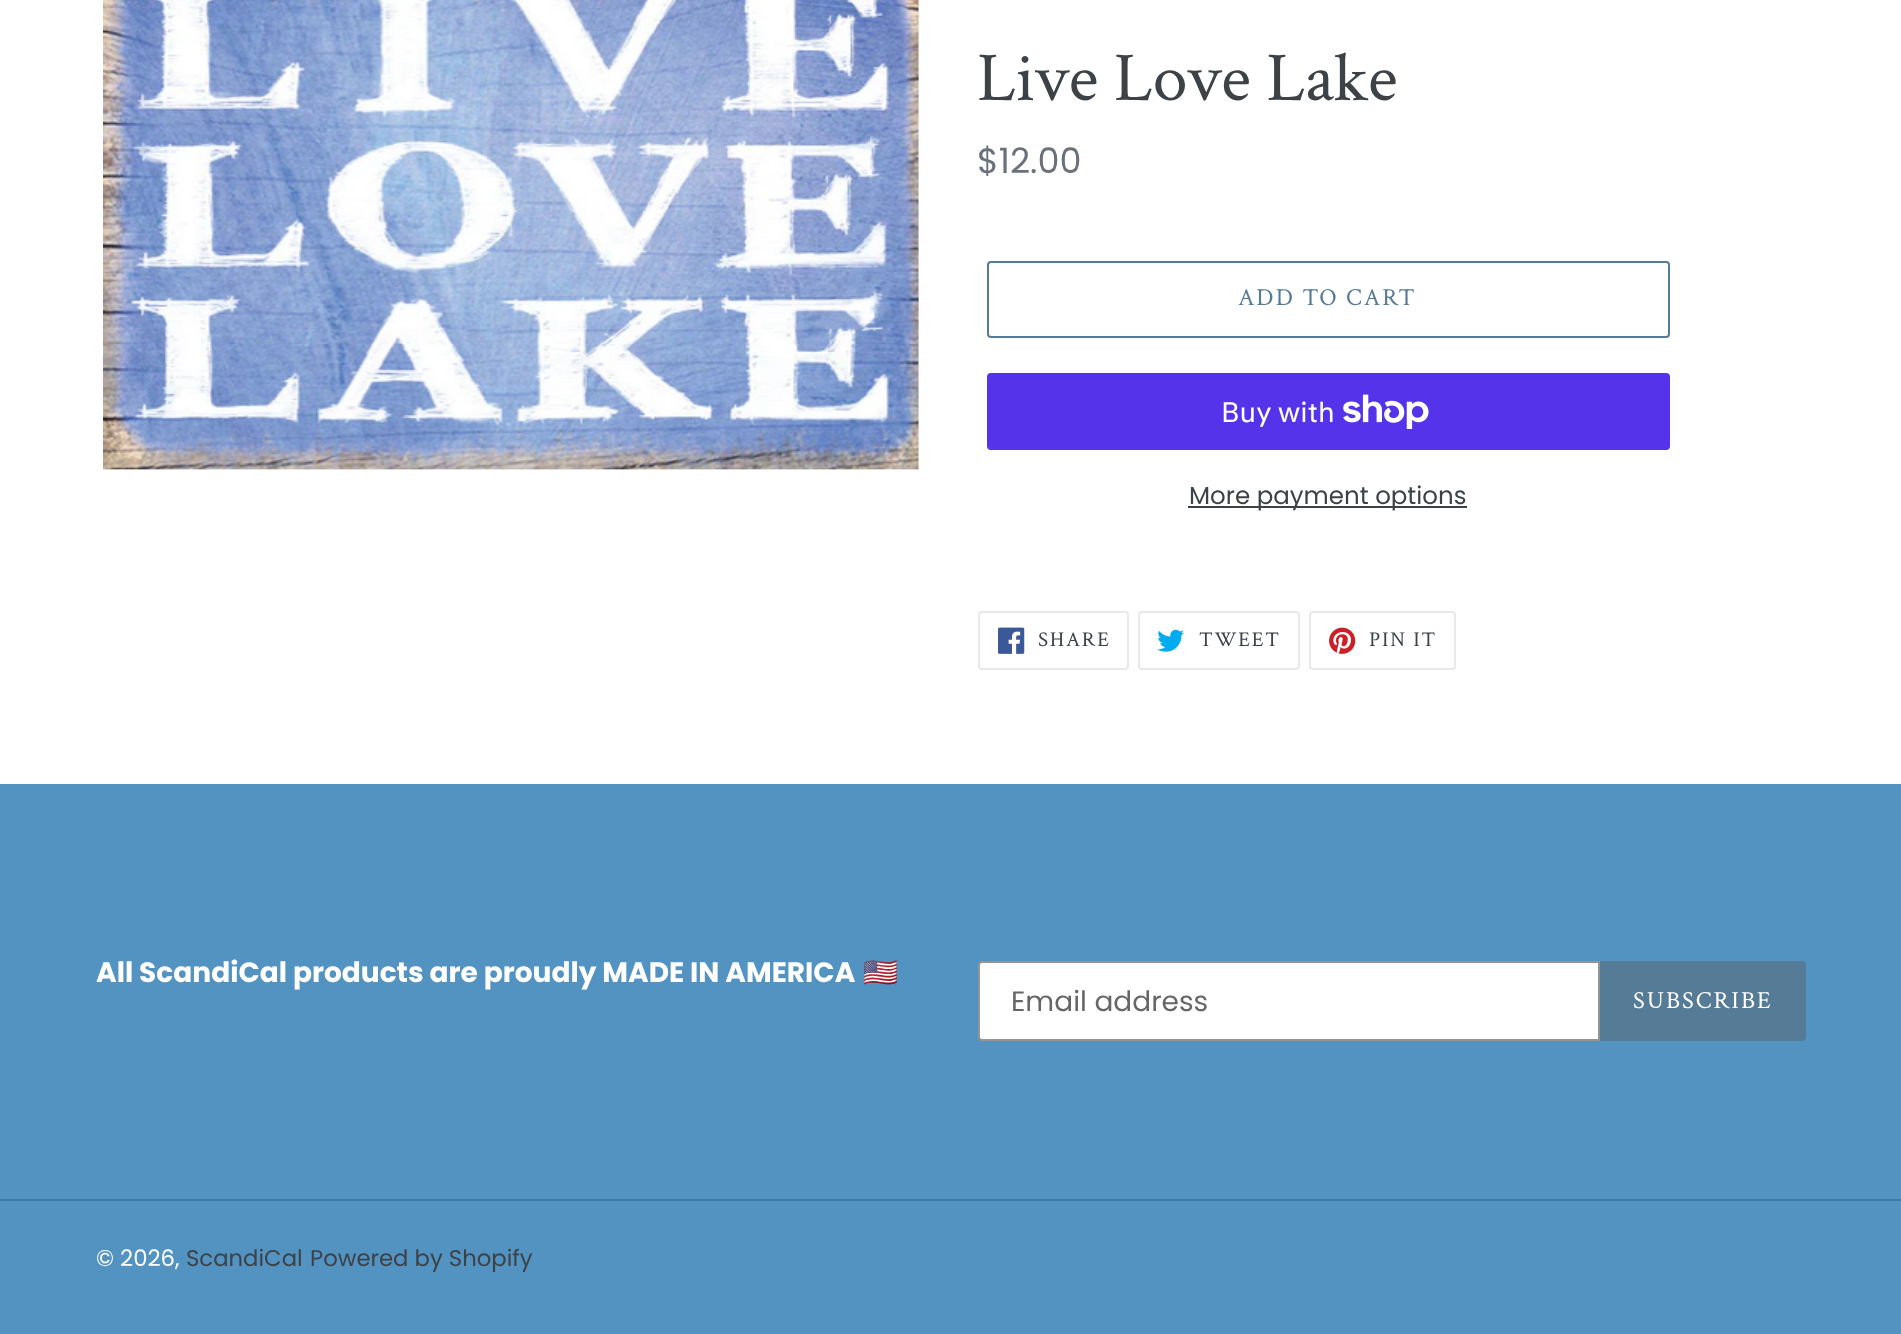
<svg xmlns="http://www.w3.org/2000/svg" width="1901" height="1334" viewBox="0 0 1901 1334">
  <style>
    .t1 { font: 70px Crimson Text; fill: #3d4246; }
    .t2 { font: 35px Poppins; fill: #69727b; }
    .t3 { font: 24.5px Crimson Text; letter-spacing: 2px; fill: #557b97; }
    .t4 { font: 28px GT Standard; fill: #fff; }
    .t5 { font: 24.5px Poppins; fill: #3d4246; }
    .t6 { font: 21px Crimson Text; letter-spacing: 1.75px; fill: #3d4246; }
    .t7 { font: bold 28px Poppins; fill: #fff; }
    .t8 { font: bold 28px Noto Color Emoji; fill: #fff; }
    .t9 { font: 28px Poppins; fill: #666; }
    .t10 { font: 24.5px Crimson Text; letter-spacing: 2px; fill: #fff; }
    .t11 { font: 22.75px Poppins; fill: #fff; }
    .t12 { font: 22.75px Poppins; fill: #3d4246; }
  </style>
  <rect width="100%" height="100%" fill="#fff"/>
  <image x="103" y="0" width="816" height="470" href="images/1.png"/>
  <text x="977" y="100" class="t1">Live Love Lake</text>
  <text x="977" y="173" class="t2">$12.00</text>
  <rect x="988" y="262" width="681" height="75" rx="3" fill="none" stroke="#557b97" stroke-width="2"/>
  <text x="1238" y="305" class="t3">ADD TO CART</text>
  <rect x="987" y="373" width="683" height="77" rx="4" fill="#5433eb"/>
  <text x="1221" y="422" class="t4">Buy with</text>
  <image x="1343" y="394" width="86" height="35" href="images/2.png"/>
  <rect x="1188" y="506" width="279" height="2" fill="#3d4246"/>
  <text x="1189" y="504" class="t5">More payment options</text>
  <rect x="979" y="612" width="149" height="57" rx="3" fill="none" stroke="#e8e9eb" stroke-width="2"/>
  <image x="998" y="627" width="27" height="27" href="images/3.png"/>
  <text x="1038" y="646" class="t6">SHARE</text>
  <rect x="1139" y="612" width="160" height="57" rx="3" fill="none" stroke="#e8e9eb" stroke-width="2"/>
  <image x="1157" y="629" width="27" height="23" href="images/4.png"/>
  <text x="1199" y="646" class="t6">TWEET</text>
  <rect x="1310" y="612" width="145" height="57" rx="3" fill="none" stroke="#e8e9eb" stroke-width="2"/>
  <image x="1329" y="627" width="27" height="27" href="images/5.png"/>
  <text x="1369" y="646" class="t6">PIN IT</text>
  <rect x="0" y="784" width="1901" height="550" fill="#5393c2"/>
  <text x="96" y="982" class="t7">All ScandiCal products are proudly MADE IN AMERICA</text>
  <text x="863" y="982" class="t8">🇺🇸</text>
  <path d="M982 962H1599V1040H982C980.5 1040 979 1038.5 979 1037V965C979 963.5 980.5 962 982 962Z" fill="#fff" stroke="#949494" stroke-width="2"/>
  <text x="1011" y="1011" class="t9">Email address</text>
  <path d="M1600 961H1802C1804 961 1806 963 1806 965V1037C1806 1039 1804 1041 1802 1041H1600Z" fill="#557b97"/>
  <text x="1633" y="1008" class="t10">SUBSCRIBE</text>
  <rect x="0" y="1199" width="1901" height="2" fill="#3b79a7"/>
  <text x="96" y="1266" class="t11">© 2026,</text>
  <text x="186" y="1266" class="t12">ScandiCal</text>
  <text x="310" y="1266" class="t12">Powered by Shopify</text>
</svg>
